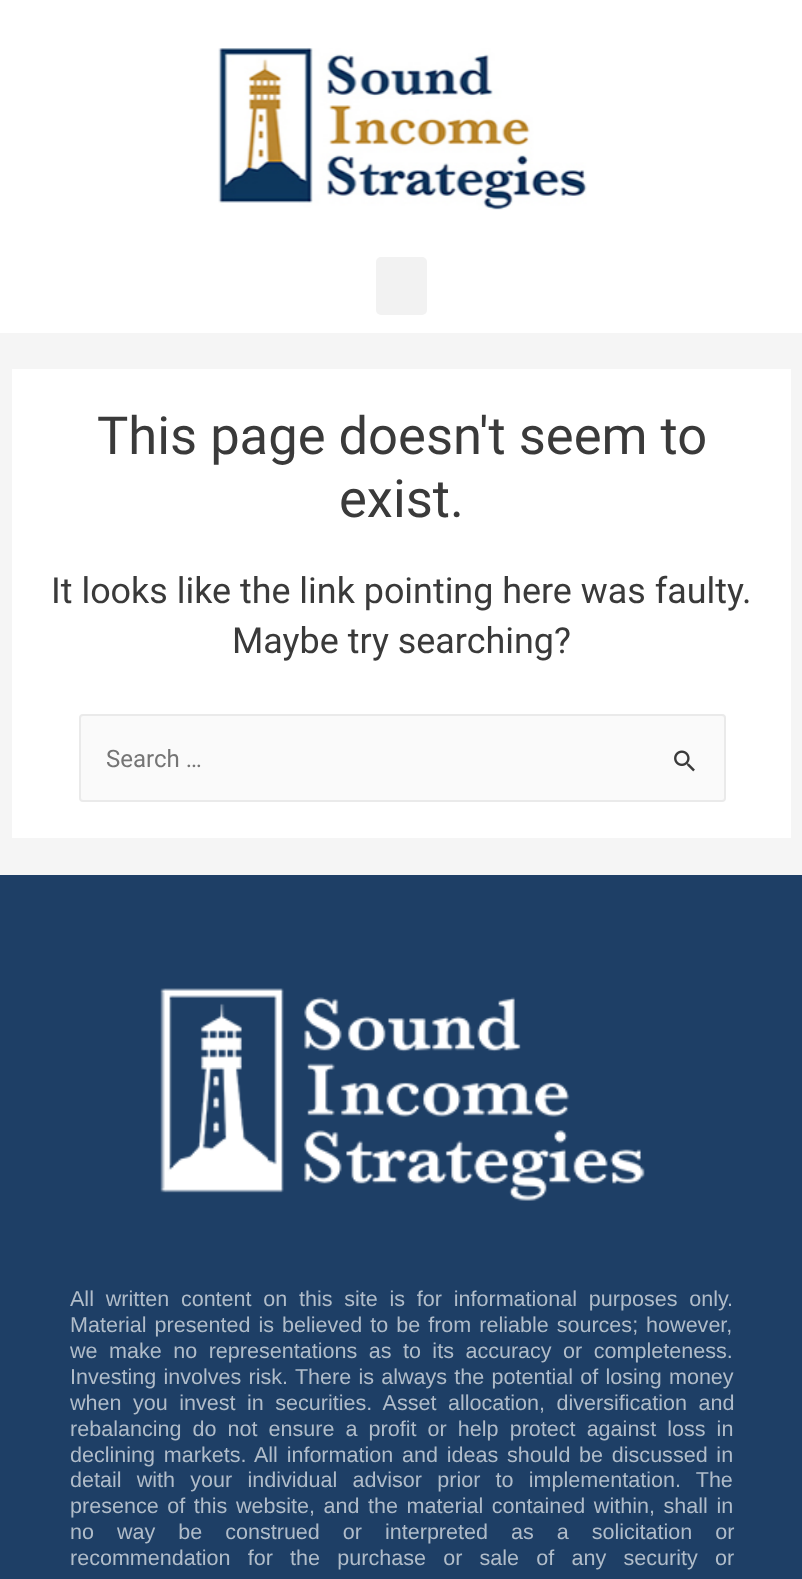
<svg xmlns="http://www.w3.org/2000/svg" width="802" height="1579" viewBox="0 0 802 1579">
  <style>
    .t1 { font: 52.5px Roboto; fill: #3a3a3a; }
    .t2 { font: 35.9px Roboto; fill: #3a3a3a; }
    .t3 { font: 24px Roboto; fill: #757575; }
    .t4 { font: 21.55px Liberation Sans; fill: #b0bcc9; }
  </style>
  <rect width="100%" height="100%" fill="#f5f5f5"/>
  <rect x="0" y="0" width="802" height="333" fill="#fff"/>
  <image x="218" y="48" width="369" height="162" href="images/1.png"/>
  <rect x="376" y="257" width="51" height="58" rx="5" fill="#f2f2f2"/>
  <rect x="12" y="369" width="779" height="469" fill="#fff"/>
  <text x="97" y="454" class="t1">This page doesn't seem to</text>
  <text x="339" y="517" class="t1">exist.</text>
  <text x="51" y="603" class="t2">It looks like the link pointing here was faulty.</text>
  <text x="232" y="653" class="t2">Maybe try searching?</text>
  <rect x="80" y="715" width="645" height="86" rx="3" fill="#fafafa" stroke="#eaeaea" stroke-width="2"/>
  <text x="106" y="767" class="t3">Search …</text>
  <image x="674" y="750" width="21" height="22" href="images/2.png"/>
  <rect x="0" y="875" width="802" height="704" fill="#1e3f66"/>
  <image x="160" y="988" width="485" height="213" href="images/3.png"/>
  <text x="70" y="1306" word-spacing="5.75" class="t4">All written content on this site is for informational purposes only.</text>
  <text x="70" y="1332" word-spacing="2" class="t4">Material presented is believed to be from reliable sources; however,</text>
  <text x="70" y="1358" word-spacing="5.5" class="t4">we make no representations as to its accuracy or completeness.</text>
  <text x="70" y="1384" word-spacing="1.25" class="t4">Investing involves risk. There is always the potential of losing money</text>
  <text x="70" y="1410" word-spacing="5.5" class="t4">when you invest in securities. Asset allocation, diversification and</text>
  <text x="70" y="1436" word-spacing="5.1" class="t4">rebalancing do not ensure a profit or help protect against loss in</text>
  <text x="70" y="1462" word-spacing="2.75" class="t4">declining markets. All information and ideas should be discussed in</text>
  <text x="70" y="1487" word-spacing="9.25" class="t4">detail with your individual advisor prior to implementation. The</text>
  <text x="70" y="1513" word-spacing="2.6" class="t4">presence of this website, and the material contained within, shall in</text>
  <text x="70" y="1539" word-spacing="17" class="t4">no way be construed or interpreted as a solicitation or</text>
  <text x="70" y="1565" word-spacing="11.25" class="t4">recommendation for the purchase or sale of any security or</text>
</svg>
